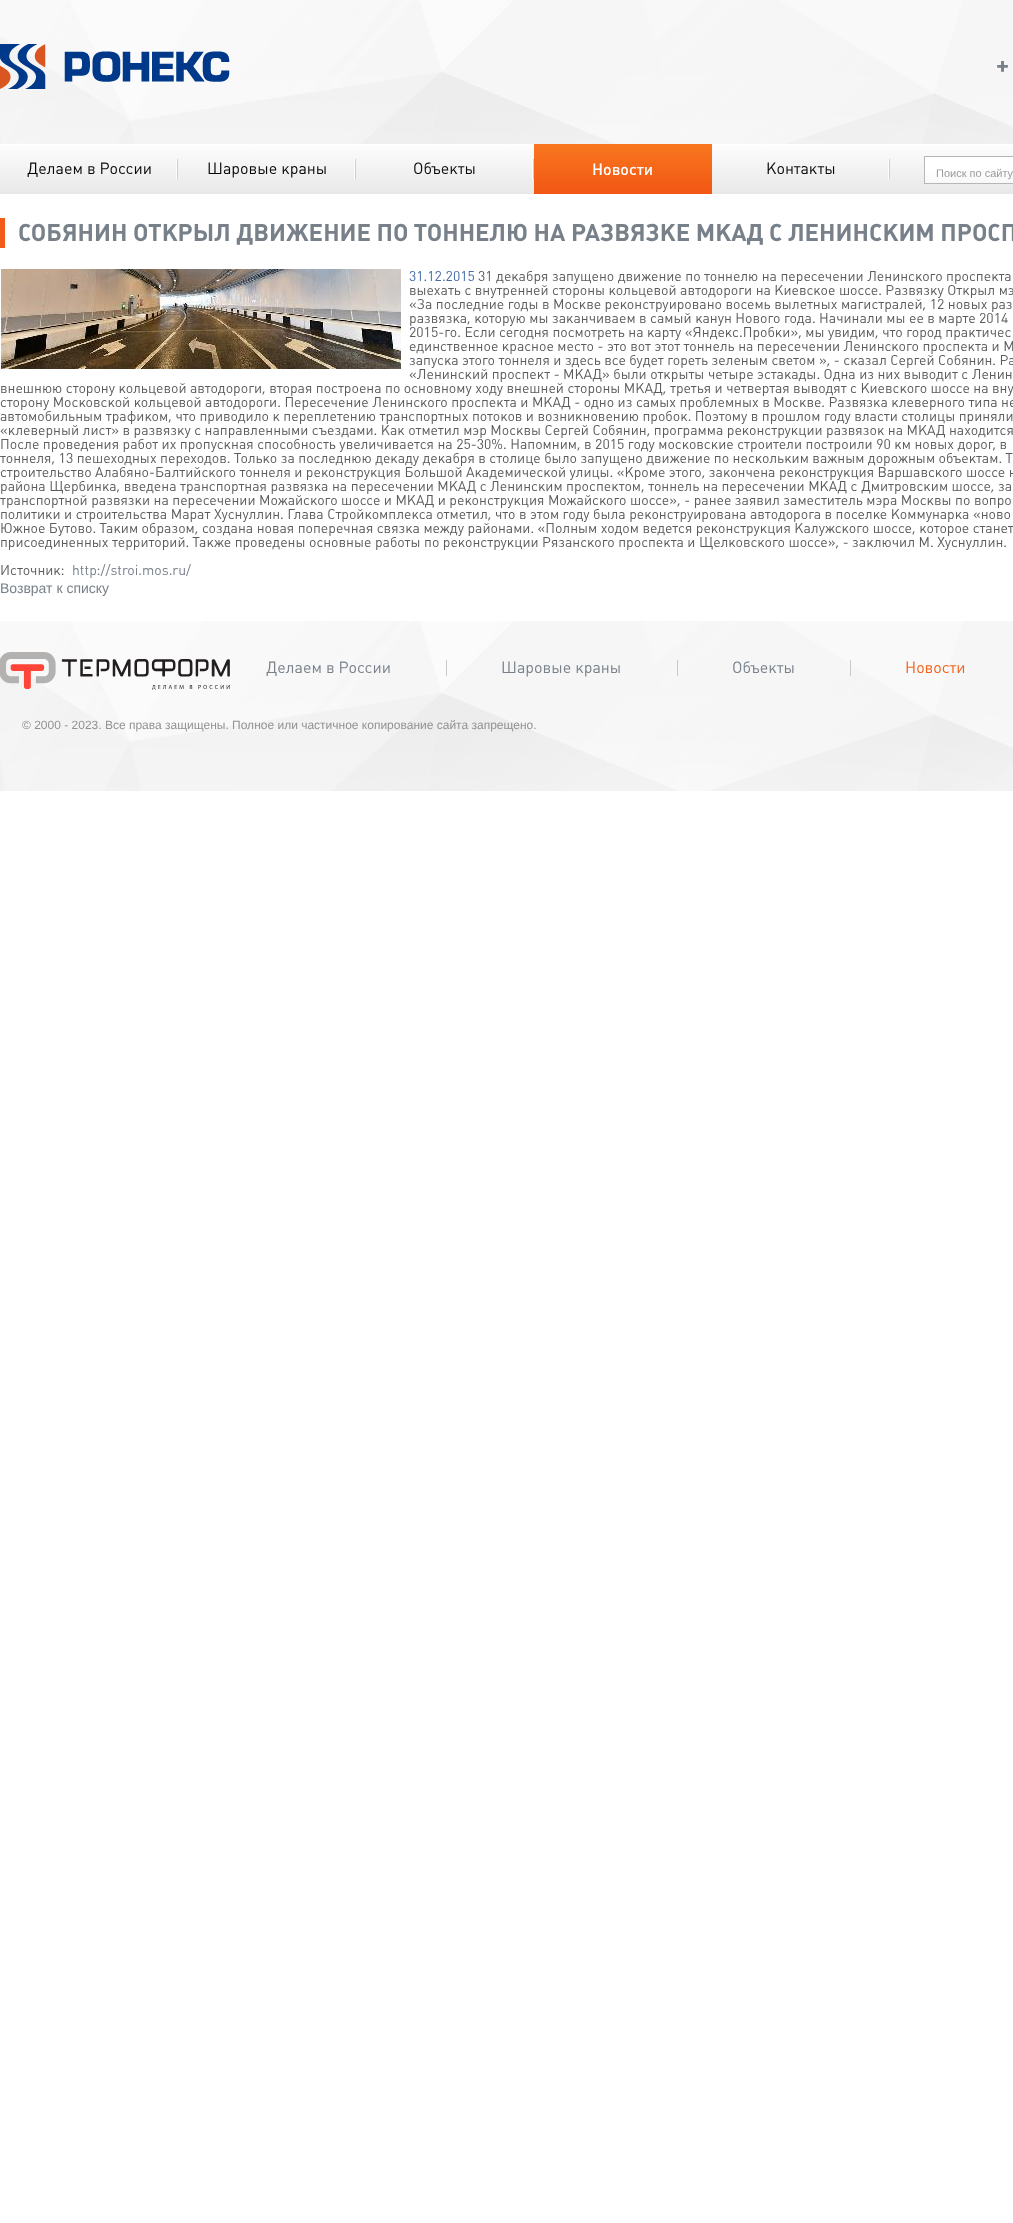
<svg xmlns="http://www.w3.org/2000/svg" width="1013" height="2223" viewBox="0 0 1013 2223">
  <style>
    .t1 { font: bold 24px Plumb; fill: #78818a; }
    .t2 { font: 16px Plumb; fill: #080808; }
    .t3 { font: 500 16px Plumb; fill: #fff; }
    .t4 { font: 11px Liberation Sans; fill: #9a9a9a; }
    .t5 { font: 14px Plumb; fill: #486daa; }
    .t6 { font: 14px Plumb; fill: #5c5c5c; }
    .t7 { font: 14px Plumb; fill: #78818a; }
    .t8 { font: 14px Liberation Sans; fill: #78818a; }
    .t9 { font: 16px Plumb; fill: #78818a; }
    .t10 { font: 16px Plumb; fill: #f46116; }
    .t11 { font: 12px Liberation Sans; fill: #929292; }
  </style>
  <defs>
    <linearGradient id="g1" gradientUnits="userSpaceOnUse" x1="507" y1="144" x2="507" y2="194"><stop offset="0" stop-color="#fdfdfd"/><stop offset="1" stop-color="#e8e8e8"/></linearGradient>
    <linearGradient id="g2" gradientUnits="userSpaceOnUse" x1="623" y1="144" x2="623" y2="194"><stop offset="0" stop-color="#f9771f"/><stop offset="1" stop-color="#f15613"/></linearGradient>
    <linearGradient id="g3" gradientUnits="userSpaceOnUse" x1="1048" y1="183" x2="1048" y2="157"><stop offset="0" stop-color="#f8f8f8"/><stop offset="0.55" stop-color="#fff"/></linearGradient>
  </defs>
  <rect width="100%" height="100%" fill="#fff"/>
  <image x="0" y="0" width="1013" height="144" href="images/1.png"/>
  <image x="0" y="44" width="230" height="45" href="images/2.png"/>
  <text x="996" y="73" class="t1">+</text>
  <rect x="0" y="145" width="1013" height="49" fill="url(#g1)"/>
  <image x="176" y="159" width="2" height="20" href="images/3.png"/>
  <text x="27" y="174" class="t2">Делаем в России</text>
  <image x="354" y="159" width="2" height="20" href="images/3.png"/>
  <text x="207" y="174" class="t2">Шаровые краны</text>
  <image x="532" y="159" width="2" height="20" href="images/3.png"/>
  <text x="413" y="174" class="t2">Объекты</text>
  <rect x="534" y="144" width="178" height="50" fill="url(#g2)"/>
  <text x="592" y="175" class="t3">Новости</text>
  <image x="888" y="159" width="2" height="20" href="images/3.png"/>
  <text x="766" y="174" class="t2">Контакты</text>
  <rect x="925" y="157" width="88" height="26" fill="url(#g3)"/>
  <rect x="924" y="156" width="89" height="1" fill="#b7b7b7"/>
  <rect x="924" y="183" width="89" height="1" fill="#b7b7b7"/>
  <rect x="924" y="156" width="1" height="28" fill="#b7b7b7"/>
  <text x="936" y="177" class="t4">Поиск по сайту.</text>
  <rect x="0" y="218" width="5" height="30" fill="#f35b19"/>
  <text x="18" y="241" class="t1">СОБЯНИН ОТКРЫЛ ДВИЖЕНИЕ ПО ТОННЕЛЮ НА РАЗВЯЗКЕ МКАД С ЛЕНИНСКИМ ПРОСП</text>
  <image x="1" y="269" width="400" height="100" href="images/4.png"/>
  <text x="409" y="281" class="t5">31.12.2015</text>
  <text x="478" y="281" class="t6">31 декабря запущено движение по тоннелю на пересечении Ленинского проспекта</text>
  <text x="409" y="295" class="t6">выехать с внутренней стороны кольцевой автодороги на Киевское шоссе. Развязку Открыл мэ</text>
  <text x="409" y="309" class="t6">«За последние годы в Москве реконструировано восемь вылетных магистралей, 12 новых раз</text>
  <text x="409" y="323" class="t6">развязка, которую мы заканчиваем в самый канун Нового года. Начинали мы ее в марте 2014</text>
  <text x="409" y="337" class="t6">2015-го. Если сегодня посмотреть на карту «Яндекс.Пробки», мы увидим, что город практичес</text>
  <text x="409" y="351" class="t6">единственное красное место - это вот этот тоннель на пересечении Ленинского проспекта и М</text>
  <text x="409" y="365" class="t6">запуска этого тоннеля и здесь все будет гореть зеленым светом », - сказал Сергей Собянин. Ра</text>
  <text x="409" y="379" class="t6">«Ленинский проспект - МКАД» были открыты четыре эстакады. Одна из них выводит с Ленин</text>
  <text x="0" y="393" class="t6">внешнюю сторону кольцевой автодороги, вторая построена по основному ходу внешней стороны МКАД, третья и четвертая выводят с Киевского шоссе на вну</text>
  <text x="0" y="407" class="t6">сторону Московской кольцевой автодороги. Пересечение Ленинского проспекта и МКАД - одно из самых проблемных в Москве. Развязка клеверного типа не</text>
  <text x="0" y="421" class="t6">автомобильным трафиком, что приводило к переплетению транспортных потоков и возникновению пробок. Поэтому в прошлом году власти столицы приняли</text>
  <text x="0" y="435" class="t6">«клеверный лист» в развязку с направленными съездами. Как отметил мэр Москвы Сергей Собянин, программа реконструкции развязок на МКАД находится</text>
  <text x="0" y="449" class="t6">После проведения работ их пропускная способность увеличивается на 25-30%. Напомним, в 2015 году московские строители построили 90 км новых дорог, в</text>
  <text x="0" y="463" class="t6">тоннеля, 13 пешеходных переходов. Только за последнюю декаду декабря в столице было запущено движение по нескольким важным дорожным объектам. Т</text>
  <text x="0" y="477" class="t6">строительство Алабяно-Балтийского тоннеля и реконструкция Большой Академической улицы. «Кроме этого, закончена реконструкция Варшавского шоссе н</text>
  <text x="0" y="491" class="t6">района Щербинка, введена транспортная развязка на пересечении МКАД с Ленинским проспектом, тоннель на пересечении МКАД с Дмитровским шоссе, за</text>
  <text x="0" y="505" class="t6">транспортной развязки на пересечении Можайского шоссе и МКАД и реконструкция Можайского шоссе», - ранее заявил заместитель мэра Москвы по вопро</text>
  <text x="0" y="519" class="t6">политики и строительства Марат Хуснуллин. Глава Стройкомплекса отметил, что в этом году была реконструирована автодорога в поселке Коммунарка «ново</text>
  <text x="0" y="533" class="t6">Южное Бутово. Таким образом, создана новая поперечная связка между районами. «Полным ходом ведется реконструкция Калужского шоссе, которое станет</text>
  <text x="0" y="547" class="t6">присоединенных территорий. Также проведены основные работы по реконструкции Рязанского проспекта и Щелковского шоссе», - заключил М. Хуснуллин.</text>
  <text x="0" y="575" class="t6">Источник:</text>
  <text x="72" y="575" class="t7">http://stroi.mos.ru/</text>
  <text x="0" y="593" class="t8">Возврат к списку</text>
  <image x="0" y="621" width="1013" height="170" href="images/5.png"/>
  <rect x="211" y="660" width="1" height="16" fill="#c9c9c9"/>
  <image x="0" y="652" width="230" height="38" href="images/6.png"/>
  <text x="266" y="673" class="t9">Делаем в России</text>
  <rect x="446" y="660" width="1" height="16" fill="#c9c9c9"/>
  <text x="501" y="673" class="t9">Шаровые краны</text>
  <rect x="677" y="660" width="1" height="16" fill="#c9c9c9"/>
  <text x="732" y="673" class="t9">Объекты</text>
  <rect x="850" y="660" width="1" height="16" fill="#c9c9c9"/>
  <text x="905" y="673" class="t10">Новости</text>
  <text x="22" y="729" class="t11">© 2000 - 2023. Все права защищены. Полное или частичное копирование сайта запрещено.</text>
</svg>
